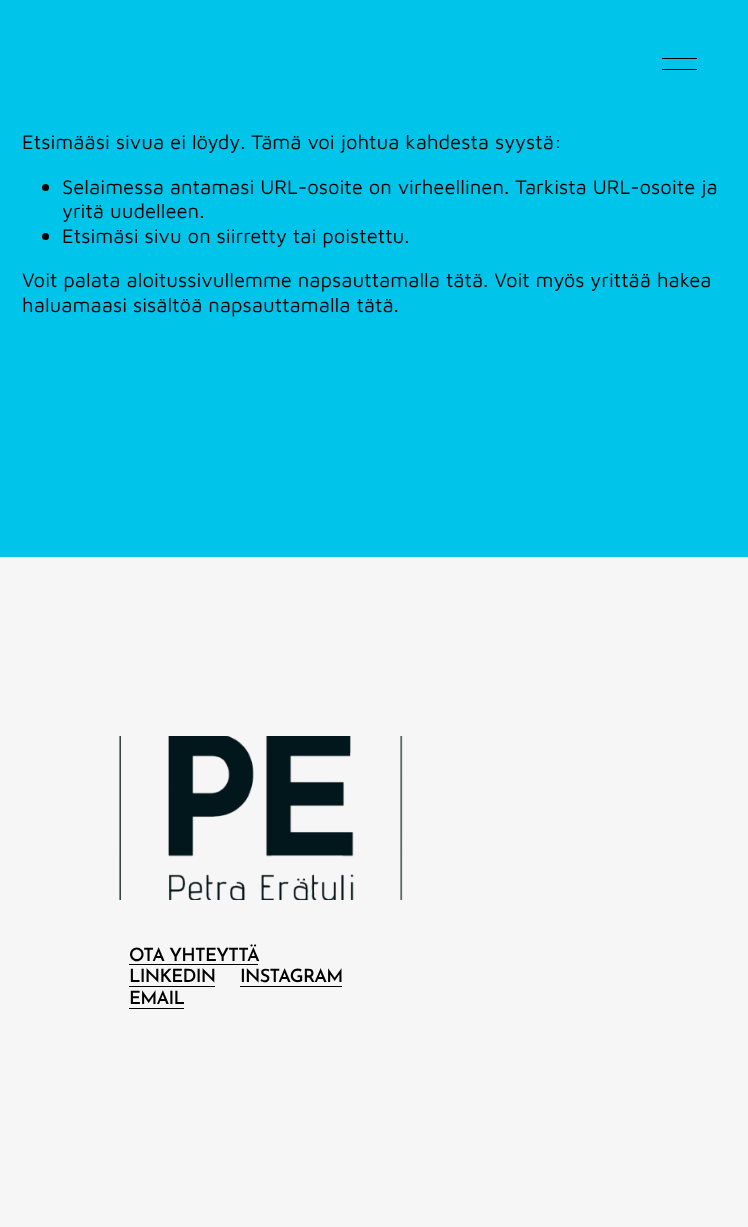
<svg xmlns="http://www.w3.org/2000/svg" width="748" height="1227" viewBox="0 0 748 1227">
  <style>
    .t1 { font: 20.3px Maven Pro; fill: #000; }
    .t2 { font: 600 18.25px Josefin Sans; letter-spacing: -0.75px; fill: #000; }
  </style>
  <rect width="100%" height="100%" fill="#00c4ea"/>
  <rect x="662" y="58" width="35" height="1" fill="#000"/>
  <rect x="662" y="69" width="35" height="1" fill="#000"/>
  <text x="22" y="149" class="t1">Etsimääsi sivua ei löydy. Tämä voi johtua kahdesta syystä:</text>
  <circle cx="45.5" cy="187.5" r="3.5" fill="#000"/>
  <text x="62" y="194" class="t1">Selaimessa antamasi URL-osoite on virheellinen. Tarkista URL-osoite ja</text>
  <text x="62" y="218" class="t1">yritä uudelleen.</text>
  <circle cx="45.5" cy="236.5" r="3.5" fill="#000"/>
  <text x="62" y="243" class="t1">Etsimäsi sivu on siirretty tai poistettu.</text>
  <text x="22" y="287" class="t1">Voit palata aloitussivullemme napsauttamalla tätä. Voit myös yrittää hakea</text>
  <text x="22" y="312" class="t1">haluamaasi sisältöä napsauttamalla tätä.</text>
  <rect x="0" y="557" width="748" height="670" fill="#f6f6f6"/>
  <image x="119" y="736" width="284" height="164" href="images/1.png"/>
  <text x="129" y="961" class="t2">OTA YHTEYTTÄ</text>
  <rect x="129" y="964" width="129" height="1" fill="#000"/>
  <text x="129" y="982" class="t2">LINKEDIN</text>
  <rect x="129" y="986" width="86" height="1" fill="#000"/>
  <text x="240" y="982" class="t2">INSTAGRAM</text>
  <rect x="240" y="986" width="102" height="1" fill="#000"/>
  <text x="129" y="1004" class="t2">EMAIL</text>
  <rect x="129" y="1008" width="55" height="1" fill="#000"/>
</svg>
